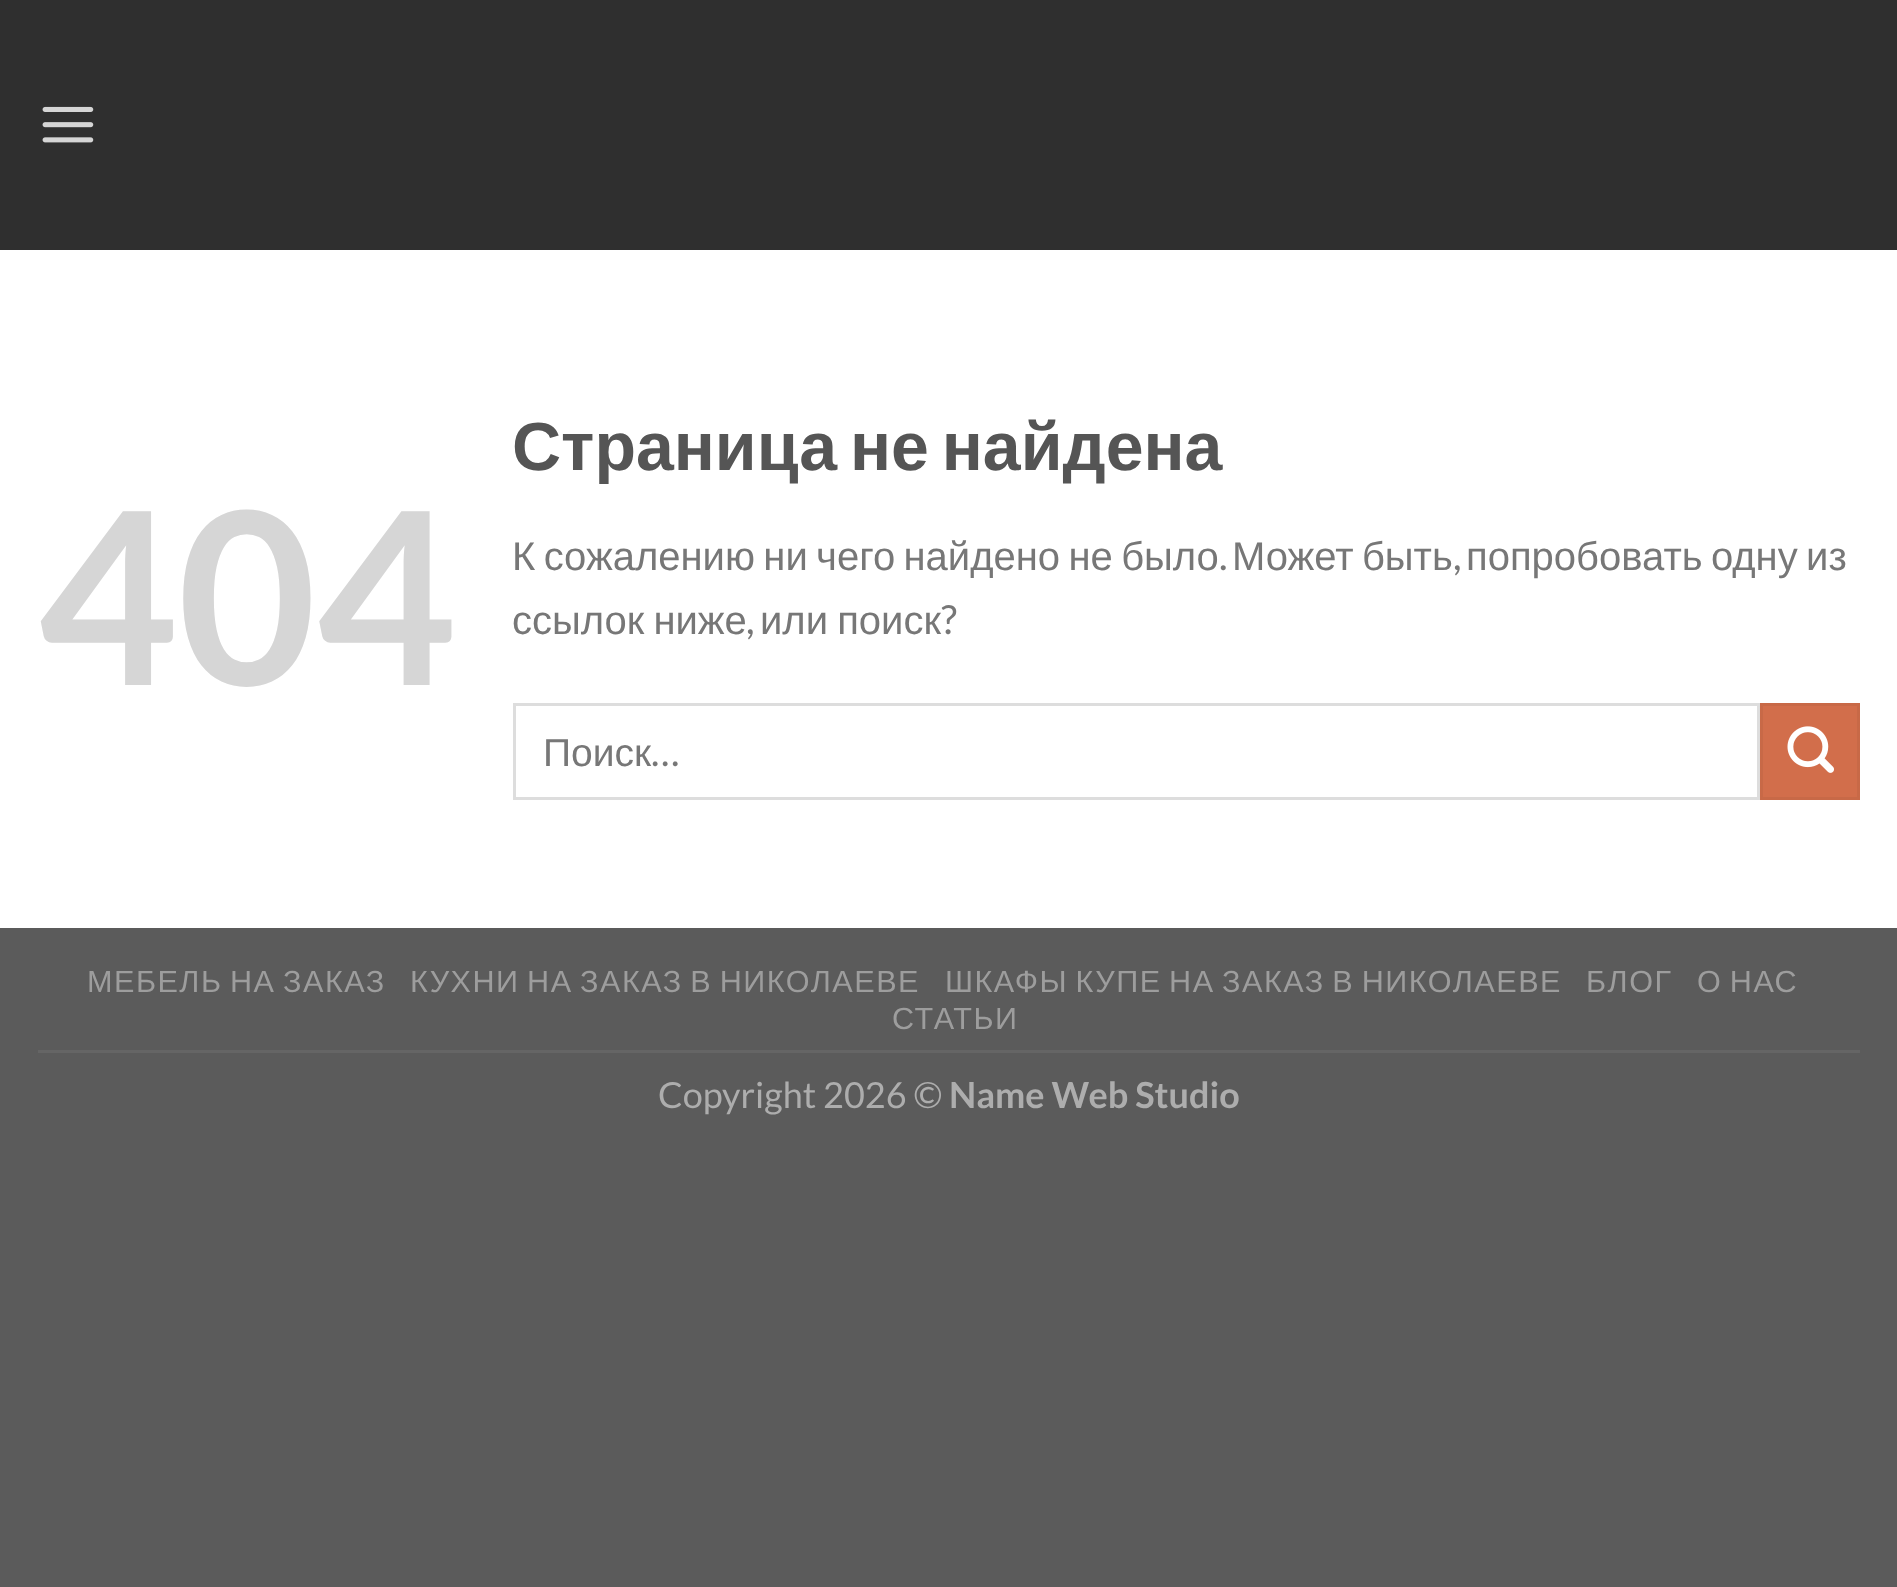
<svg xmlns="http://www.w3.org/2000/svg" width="1897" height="1587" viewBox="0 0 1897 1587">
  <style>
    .t1 { font: bold 240px Lato; fill: #d6d6d6; }
    .t2 { font: bold 68px Liberation Sans; fill: #555; }
    .t3 { font: 40px Liberation Sans; fill: #777; }
    .t4 { font: 40px Lato; fill: #777; }
    .t5 { font: 39px Liberation Sans; fill: #777; }
    .t6 { font: 39px Lato; fill: #777; }
    .t7 { font: 30.6px Liberation Sans; letter-spacing: 1.5px; fill: #9d9d9d; }
    .t8 { font: 36px Lato; fill: #adadad; }
    .t9 { font: bold 36px Lato; fill: #adadad; }
  </style>
  <rect width="100%" height="100%" fill="#5b5b5b"/>
  <rect x="0" y="250" width="1897" height="678" fill="#fff"/>
  <rect x="0" y="0" width="1897" height="250" fill="#2f2f2f"/>
  <image x="42" y="106" width="52" height="37" href="images/1.png"/>
  <text x="38" y="685" class="t1">404</text>
  <text x="512" y="470" word-spacing="-6" class="t2">Страница не найдена</text>
  <text x="512" y="570" word-spacing="-2.75" class="t3">К сожалению ни чего найдено не было</text>
  <text x="1219" y="570" class="t4">.</text>
  <text x="1232" y="570" word-spacing="-2.75" class="t3">Может быть</text>
  <text x="1453" y="570" class="t4">,</text>
  <text x="1466" y="570" word-spacing="-2.75" class="t3">попробовать одну из</text>
  <text x="512" y="634" word-spacing="-2" class="t3">ссылок ниже</text>
  <text x="746" y="634" class="t4">,</text>
  <text x="760" y="634" word-spacing="-2" class="t3">или поиск</text>
  <text x="941" y="634" class="t4">?</text>
  <rect x="514.5" y="704.5" width="1244" height="94" fill="none" stroke="#ddd" stroke-width="3"/>
  <text x="543" y="766" class="t5">Поиск</text>
  <text x="651" y="766" class="t6">…</text>
  <rect x="1761.5" y="704.5" width="97" height="94" fill="#d26e4b" stroke="#c86947" stroke-width="3"/>
  <image x="1787" y="726" width="47" height="47" href="images/2.png"/>
  <rect x="38" y="1050" width="1822" height="3" fill="#656565"/>
  <text x="87" y="992" word-spacing="-2.5" class="t7">МЕБЕЛЬ НА ЗАКАЗ</text>
  <text x="410" y="992" word-spacing="-2.5" class="t7">КУХНИ НА ЗАКАЗ В НИКОЛАЕВЕ</text>
  <text x="945" y="992" word-spacing="-2.5" class="t7">ШКАФЫ КУПЕ НА ЗАКАЗ В НИКОЛАЕВЕ</text>
  <text x="1586" y="992" class="t7">БЛОГ</text>
  <text x="1697" y="992" word-spacing="-2.5" class="t7">О НАС</text>
  <text x="892" y="1029" class="t7">СТАТЬИ</text>
  <text x="658" y="1108" class="t8">Copyright 2026 ©</text>
  <text x="949" y="1108" class="t9">Name Web Studio</text>
</svg>
